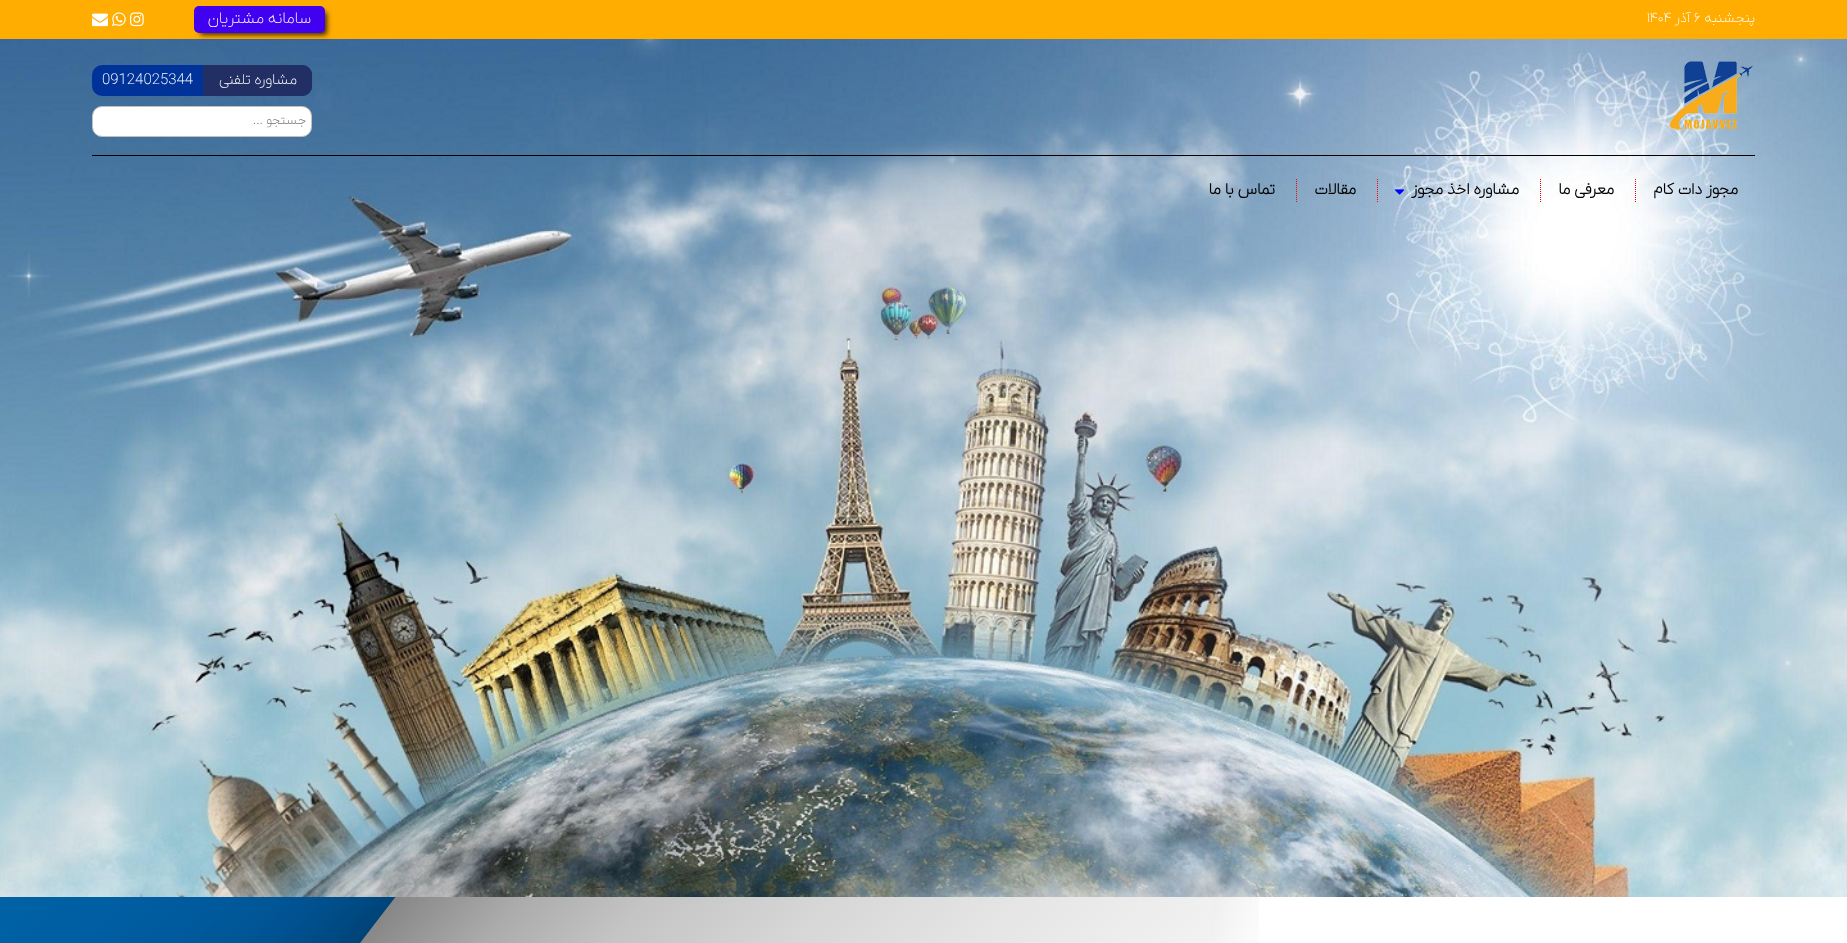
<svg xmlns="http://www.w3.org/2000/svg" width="1847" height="943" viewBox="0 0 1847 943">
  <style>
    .t1 { font: 200 14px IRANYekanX; direction: rtl; fill: #fff; }
    .t2 { font: 200 14px IRANYekanX; fill: #fff; }
    .t3 { font: 200 16px IRANYekanX; direction: rtl; fill: #fff; }
    .t4 { font: 200 15px IRANYekanX; direction: rtl; fill: #fff; }
    .t5 { font: 200 15px IRANYekanX; fill: #fff; }
    .t6 { font: 200 13px IRANYekanX; direction: rtl; fill: #757575; }
    .t7 { font: bold 16px IRANYekanX; direction: rtl; fill: #000; }
  </style>
  <rect width="100%" height="100%" fill="#fff"/>
  <rect x="0" y="0" width="1847" height="39" fill="#ffad01"/>
  <text x="1755" y="22" class="t1">پنجشنبه</text>
  <text x="1694" y="22" class="t2">۶</text>
  <text x="1690" y="22" class="t1">آذر</text>
  <text x="1647" y="22" class="t2">۱۴۰۴</text>
  <image x="0" y="39" width="1847" height="858" href="images/6.png"/>
  <rect x="200" y="12" width="127" height="23" rx="3" fill="#000000bf" filter="blur(2.5px)"/>
  <rect x="194" y="6" width="131" height="27" rx="5" fill="#4200f0"/>
  <text x="311" y="23" class="t3">سامانه مشتریان</text>
  <image x="130" y="12" width="14" height="15" href="images/1.png"/>
  <image x="112" y="12" width="14" height="15" href="images/2.png"/>
  <image x="92" y="13" width="16" height="14" href="images/3.png"/>
  <rect x="92" y="155" width="1663" height="1" fill="#000"/>
  <image x="1669" y="61" width="84" height="69" href="images/4.png"/>
  <rect x="92" y="65" width="220" height="31" rx="10" fill="#039"/>
  <path d="M203 65H302C307.5 65 312 69.5 312 75V86C312 91.5 307.5 96 302 96H203Z" fill="#212f65"/>
  <text x="297" y="84" class="t4">مشاوره تلفنی</text>
  <text x="102" y="84" class="t5">09124025344</text>
  <rect x="92.5" y="106.5" width="219" height="30" rx="9.5" fill="#fff" stroke="#c0c0c0"/>
  <text x="306" y="124" class="t6">جستجو ...</text>
  <path d="M1635.5 179V202" fill="none" stroke="#f00" stroke-dasharray="1 1"/>
  <text x="1738" y="194" class="t7">مجوز دات کام</text>
  <path d="M1540.5 179V202" fill="none" stroke="#f00" stroke-dasharray="1 1"/>
  <text x="1614" y="194" class="t7">معرفی ما</text>
  <path d="M1377.5 179V202" fill="none" stroke="#f00" stroke-dasharray="1 1"/>
  <text x="1519" y="194" class="t7">مشاوره اخذ مجوز</text>
  <image x="1395" y="189" width="10" height="6" href="images/5.png"/>
  <path d="M1296.5 179V202" fill="none" stroke="#f00" stroke-dasharray="1 1"/>
  <text x="1356" y="194" class="t7">مقالات</text>
  <text x="1275" y="194" class="t7">تماس با ما</text>
  <image x="0" y="897" width="1259" height="46" href="images/7.png"/>
</svg>
